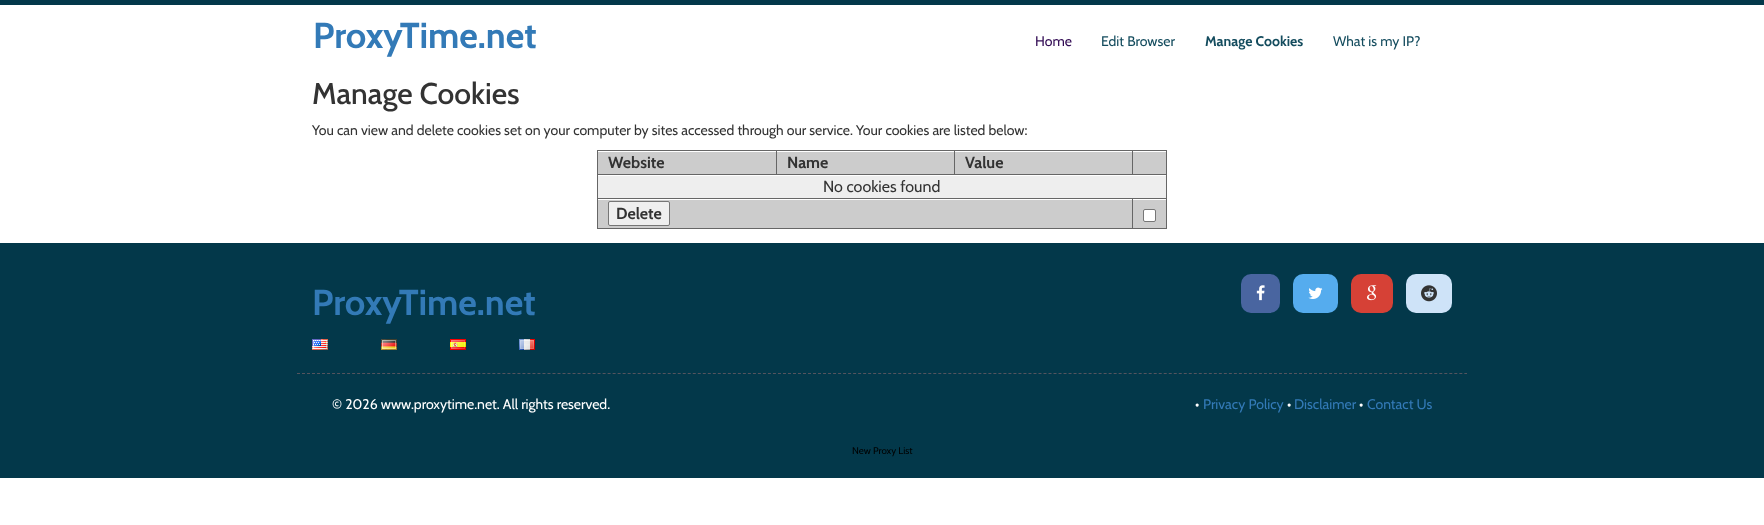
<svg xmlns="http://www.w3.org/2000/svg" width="1764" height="525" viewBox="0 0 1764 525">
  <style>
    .t1 { font: bold 36px Cabin; fill: #337ab7; }
    .t2 { font: 14px Cabin; fill: #300952; }
    .t3 { font: 14px Cabin; fill: #144c5e; }
    .t4 { font: bold 14px Cabin; fill: #144c5e; }
    .t5 { font: 500 30px Cabin; fill: #333; }
    .t6 { font: 14px Cabin; fill: #333; }
    .t7 { font: bold 16px Cabin; fill: #333; }
    .t8 { font: 16px Cabin; fill: #333; }
    .t9 { font: 14px Cabin; fill: #fff; }
    .t10 { font: 14px Cabin; fill: #337ab7; }
    .t11 { font: 9.75px Cabin; fill: #000; }
  </style>
  <rect width="100%" height="100%" fill="#fff"/>
  <rect x="0" y="0" width="1764" height="5" fill="#03384a"/>
  <text x="313" y="48" class="t1">ProxyTime.net</text>
  <text x="1035" y="46" class="t2">Home</text>
  <text x="1101" y="46" class="t3">Edit Browser</text>
  <text x="1205" y="46" class="t4">Manage Cookies</text>
  <text x="1333" y="46" class="t3">What is my IP?</text>
  <text x="312" y="104" class="t5">Manage Cookies</text>
  <text x="312" y="135" class="t6">You can view and delete cookies set on your computer by sites accessed through our service. Your cookies are listed below:</text>
  <rect x="597" y="228" width="570" height="1" fill="#666"/>
  <rect x="597" y="150" width="1" height="79" fill="#666"/>
  <rect x="1133" y="152" width="33" height="22" fill="#ccc"/>
  <rect x="597" y="150" width="570" height="1" fill="#666"/>
  <rect x="597" y="174" width="570" height="1" fill="#666"/>
  <rect x="597" y="198" width="570" height="1" fill="#666"/>
  <rect x="1166" y="198" width="1" height="31" fill="#666"/>
  <rect x="1166" y="174" width="1" height="25" fill="#666"/>
  <rect x="1166" y="150" width="1" height="25" fill="#666"/>
  <rect x="598" y="152" width="178" height="22" fill="#ccc"/>
  <rect x="776" y="150" width="1" height="25" fill="#666"/>
  <text x="608" y="168" class="t7">Website</text>
  <rect x="777" y="152" width="177" height="22" fill="#ccc"/>
  <rect x="954" y="150" width="1" height="25" fill="#666"/>
  <text x="787" y="168" class="t7">Name</text>
  <rect x="955" y="152" width="177" height="22" fill="#ccc"/>
  <rect x="1132" y="150" width="1" height="25" fill="#666"/>
  <text x="965" y="168" class="t7">Value</text>
  <rect x="598" y="176" width="568" height="22" fill="#eee"/>
  <text x="823" y="192" class="t8">No cookies found</text>
  <rect x="1133" y="200" width="33" height="28" fill="#ccc"/>
  <rect x="1143.5" y="209.5" width="12" height="12" rx="1.5" fill="#fff" stroke="#767676"/>
  <rect x="598" y="200" width="534" height="28" fill="#ccc"/>
  <rect x="1132" y="198" width="1" height="31" fill="#666"/>
  <rect x="608.5" y="201.5" width="61" height="24" rx="1.5" fill="#efefef" stroke="#767676"/>
  <text x="616" y="219" class="t7">Delete</text>
  <rect x="0" y="243" width="1764" height="235" fill="#03384a"/>
  <path d="M297 373.5H1467" fill="none" stroke="#54545e" stroke-dasharray="3 2.01"/>
  <text x="312" y="315" class="t1">ProxyTime.net</text>
  <rect x="1241" y="274" width="39" height="39" rx="10" fill="#4965a0"/>
  <image x="1256" y="285" width="9" height="16" href="images/1.png"/>
  <rect x="1293" y="274" width="45" height="39" rx="10" fill="#55acee"/>
  <image x="1308" y="287" width="15" height="12" href="images/2.png"/>
  <rect x="1351" y="274" width="42" height="39" rx="10" fill="#d64136"/>
  <image x="1367" y="285" width="10" height="16" href="images/3.png"/>
  <rect x="1406" y="274" width="46" height="39" rx="10" fill="#cee3f8"/>
  <image x="1421" y="285" width="16" height="17" href="images/4.png"/>
  <image x="312" y="339" width="16" height="11" href="images/5.png"/>
  <image x="381" y="339" width="16" height="11" href="images/6.png"/>
  <image x="450" y="339" width="16" height="11" href="images/7.png"/>
  <image x="519" y="339" width="16" height="11" href="images/8.png"/>
  <text x="332" y="409" class="t9">© 2026 www.proxytime.net. All rights reserved.</text>
  <text x="1195" y="409" class="t9">•</text>
  <text x="1203" y="409" class="t10">Privacy Policy</text>
  <text x="1287" y="409" class="t9">•</text>
  <text x="1294" y="409" class="t10">Disclaimer</text>
  <text x="1359" y="409" class="t9">•</text>
  <text x="1367" y="409" class="t10">Contact Us</text>
  <text x="852" y="454" class="t11">New Proxy List</text>
</svg>
